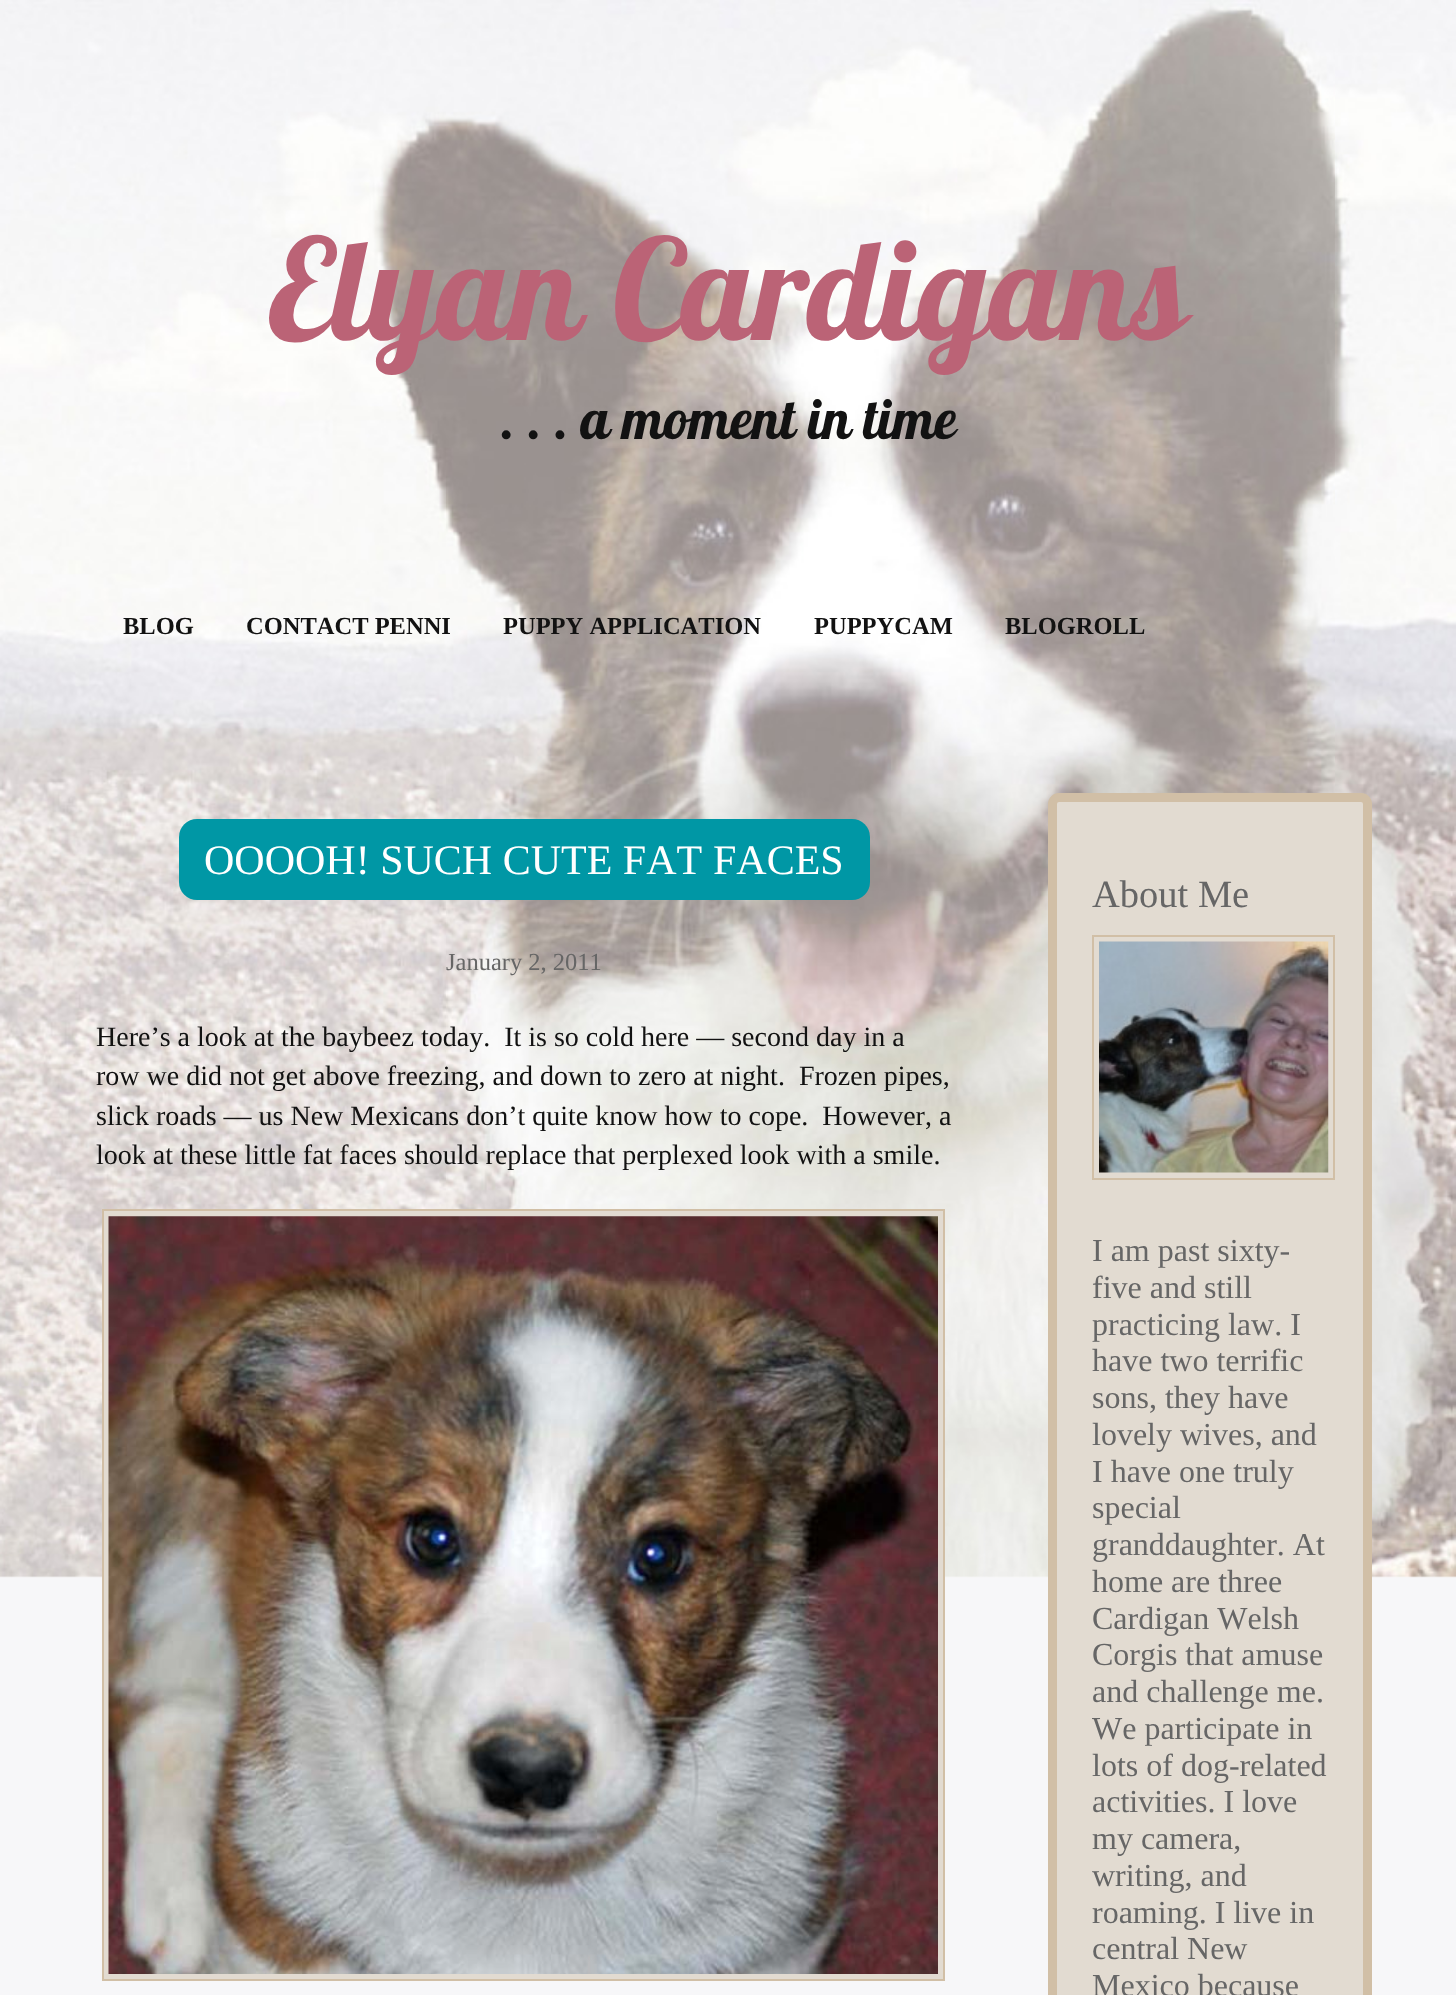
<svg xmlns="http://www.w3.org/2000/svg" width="1456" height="1995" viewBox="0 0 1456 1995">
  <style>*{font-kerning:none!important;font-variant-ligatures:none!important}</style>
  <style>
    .t1 { font: 140px Lobster; fill: #bb6376; }
    .t2 { font: 56px Lobster; fill: #121212; }
    .t3 { font: bold 24.5px Liberation Serif; fill: #121212; }
    .t4 { font: 42px Liberation Serif; fill: #fff; }
    .t5 { font: 24.5px Liberation Serif; fill: #666; }
    .t6 { font: 28px Liberation Serif; fill: #121212; }
    .t7 { font: 38.5px Liberation Serif; fill: #666; }
    .t8 { font: 32px Liberation Serif; fill: #666; }
  </style>
  <rect width="100%" height="100%" fill="#f7f7f9"/>
  <image x="0" y="0" width="1456" height="1578" href="images/1.png"/>
  <text x="268" y="340" class="t1">Elyan Cardigans</text>
  <text x="500" y="439" class="t2">. . . a moment in time</text>
  <text x="123" y="634" class="t3">BLOG</text>
  <text x="246" y="634" class="t3">CONTACT PENNI</text>
  <text x="503" y="634" class="t3">PUPPY APPLICATION</text>
  <text x="814" y="634" class="t3">PUPPYCAM</text>
  <text x="1005" y="634" class="t3">BLOGROLL</text>
  <rect x="179" y="819" width="691" height="81" rx="18" fill="#0097a5"/>
  <text x="204" y="874" class="t4">OOOOH! SUCH CUTE FAT</text>
  <text x="713" y="874" class="t4">FACES</text>
  <text x="446" y="970" class="t5">January 2, 2011</text>
  <text x="96" y="1046" class="t6" xml:space="preserve">Here’s a look at the baybeez today.  It is so cold here — second day in a</text>
  <text x="96" y="1085" class="t6" xml:space="preserve">row we did not get above freezing, and down to zero at night.  Frozen pipes,</text>
  <text x="96" y="1125" class="t6" xml:space="preserve">slick roads — us New Mexicans don’t quite know how to cope.  However, a</text>
  <text x="96" y="1164" class="t6">look at these little fat faces should replace that perplexed look with a smile.</text>
  <rect x="103" y="1210" width="841" height="770" fill="#e2dbd1" stroke="#d1bfa6" stroke-width="2"/>
  <image x="108" y="1216" width="830" height="758" href="images/2.png"/>
  <rect x="1052.5" y="797.5" width="315" height="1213" rx="6.5" fill="#e2dbd1" stroke="#d1bfa6" stroke-width="9"/>
  <text x="1092" y="907" class="t7">About Me</text>
  <rect x="1093" y="936" width="241" height="243" fill="none" stroke="#d1bfa6" stroke-width="2"/>
  <image x="1099" y="941" width="230" height="232" href="images/3.png"/>
  <text x="1092" y="1261" class="t8">I am past sixty-</text>
  <text x="1092" y="1298" class="t8">five and still</text>
  <text x="1092" y="1335" class="t8">practicing law. I</text>
  <text x="1092" y="1371" class="t8">have two terrific</text>
  <text x="1092" y="1408" class="t8">sons, they have</text>
  <text x="1092" y="1445" class="t8">lovely wives, and</text>
  <text x="1092" y="1482" class="t8">I have one truly</text>
  <text x="1092" y="1518" class="t8">special</text>
  <text x="1092" y="1555" class="t8">granddaughter. At</text>
  <text x="1092" y="1592" class="t8">home are three</text>
  <text x="1092" y="1629" class="t8">Cardigan Welsh</text>
  <text x="1092" y="1665" class="t8">Corgis that amuse</text>
  <text x="1092" y="1702" class="t8">and challenge me.</text>
  <text x="1092" y="1739" class="t8">We participate in</text>
  <text x="1092" y="1776" class="t8">lots of dog-related</text>
  <text x="1092" y="1812" class="t8">activities. I love</text>
  <text x="1092" y="1849" class="t8">my camera,</text>
  <text x="1092" y="1886" class="t8">writing, and</text>
  <text x="1092" y="1923" class="t8">roaming. I live in</text>
  <text x="1092" y="1959" class="t8">central New</text>
  <text x="1092" y="1996" class="t8">Mexico because</text>
</svg>
